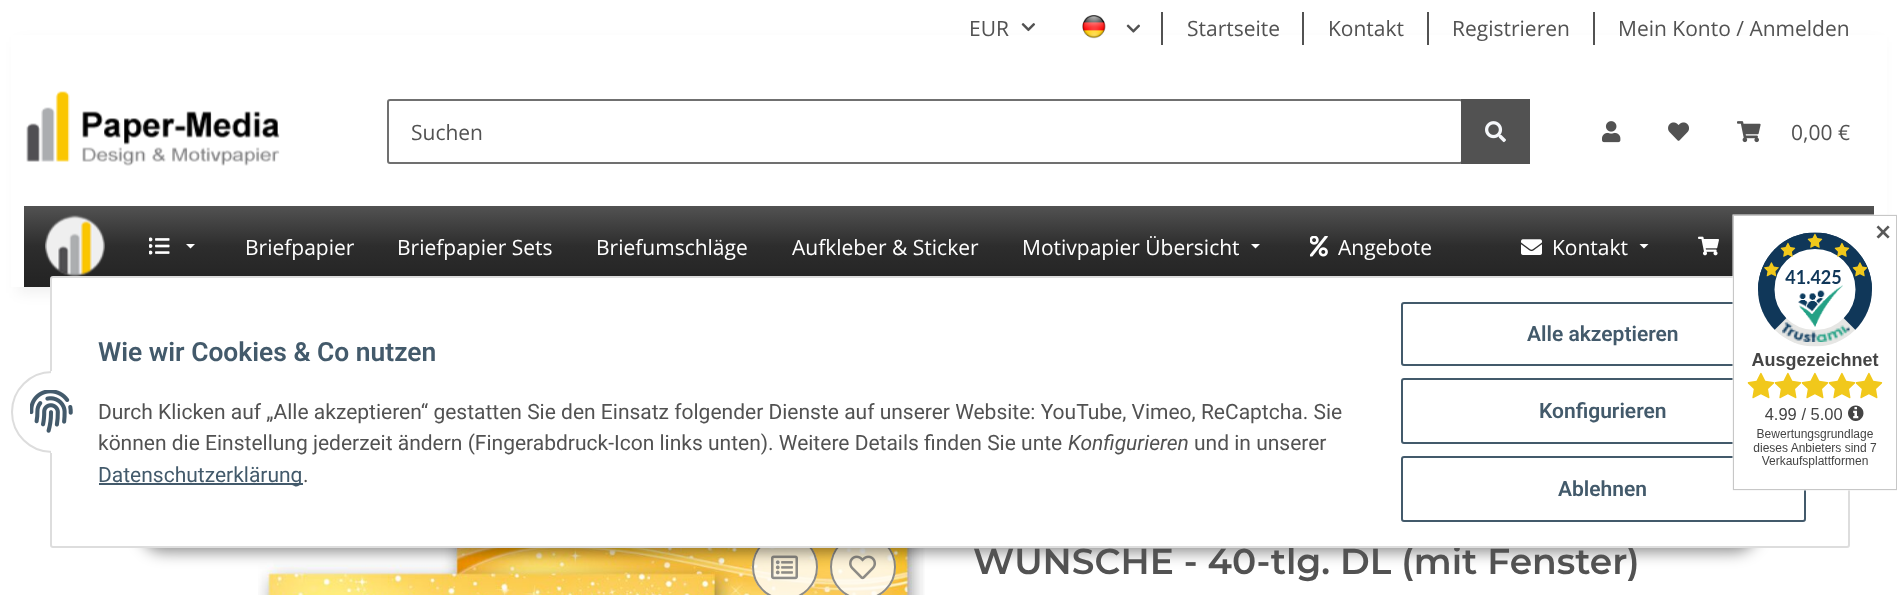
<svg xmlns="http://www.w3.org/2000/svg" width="1897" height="595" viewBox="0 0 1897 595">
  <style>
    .t1 { font: 21px Open Sans; fill: #525252; }
    .t2 { font: 21px Open Sans; fill: #fff; }
    .t3 { font: 600 36px Montserrat; fill: #525252; }
    .t4 { font: bold 21px DejaVu Sans; fill: #595959; }
    .t5 { font: 600 26.4px Roboto; fill: #435a6b; }
    .t6 { font: 21px Roboto; fill: #525252; }
    .t7 { font: italic 21px Roboto; fill: #525252; }
    .t8 { font: 21px Roboto; fill: #435a6b; }
    .t9 { font: 600 21px Roboto; fill: #435a6b; }
  </style>
  <defs>
    <linearGradient id="g1" gradientUnits="userSpaceOnUse" x1="949" y1="205" x2="949" y2="287"><stop offset="0" stop-color="#535353"/><stop offset="0.5" stop-color="#2d2d2d"/><stop offset="1" stop-color="#232323"/></linearGradient>
  </defs>
  <rect width="100%" height="100%" fill="#fff"/>
  <rect x="18" y="42" width="1862" height="251" fill="#0000000f" filter="blur(7px)"/>
  <rect x="11" y="35" width="1876" height="252" fill="#fff"/>
  <text x="969" y="36" class="t1">EUR</text>
  <image x="1021" y="23" width="15" height="9" href="images/1.png"/>
  <image x="1082" y="15" width="24" height="24" href="images/2.png"/>
  <image x="1126" y="24" width="14" height="9" href="images/3.png"/>
  <rect x="1161" y="12" width="2" height="33" fill="#525252"/>
  <text x="1187" y="36" class="t1">Startseite</text>
  <rect x="1302" y="12" width="2" height="33" fill="#525252"/>
  <text x="1328" y="36" class="t1">Kontakt</text>
  <rect x="1427" y="12" width="2" height="33" fill="#525252"/>
  <text x="1452" y="36" class="t1">Registrieren</text>
  <rect x="1593" y="12" width="2" height="33" fill="#525252"/>
  <text x="1618" y="36" class="t1">Mein Konto / Anmelden</text>
  <image x="26" y="91" width="254" height="75" href="images/4.png"/>
  <rect x="388" y="100" width="1074" height="63" rx="2" fill="none" stroke="#707070" stroke-width="2"/>
  <text x="411" y="140" class="t1">Suchen</text>
  <rect x="1461" y="99" width="69" height="65" fill="#525252"/>
  <image x="1485" y="121" width="21" height="22" href="images/5.png"/>
  <image x="1602" y="121" width="19" height="22" href="images/6.png"/>
  <image x="1668" y="122" width="21" height="19" href="images/7.png"/>
  <image x="1737" y="121" width="24" height="22" href="images/8.png"/>
  <text x="1791" y="140" class="t1">0,00 €</text>
  <rect x="24" y="206" width="1850" height="81" fill="url(#g1)"/>
  <image x="45" y="215" width="60" height="61" href="images/9.png"/>
  <image x="149" y="237" width="21" height="18" href="images/10.png"/>
  <path d="M186 244H195L190.5 248.5Z" fill="#fff"/>
  <text x="245" y="255" class="t2">Briefpapier</text>
  <text x="397" y="255" class="t2">Briefpapier Sets</text>
  <text x="596" y="255" class="t2">Briefumschläge</text>
  <text x="792" y="255" class="t2">Aufkleber &amp; Sticker</text>
  <text x="1022" y="255" class="t2">Motivpapier Übersicht</text>
  <path d="M1251 244H1260L1255.5 248.5Z" fill="#fff"/>
  <image x="1310" y="236" width="18" height="21" href="images/11.png"/>
  <text x="1338" y="255" class="t2">Angebote</text>
  <image x="1521" y="239" width="21" height="16" href="images/12.png"/>
  <text x="1552" y="255" class="t2">Kontakt</text>
  <path d="M1639.5 244H1648.5L1644 248.5Z" fill="#fff"/>
  <image x="1698" y="236" width="21" height="20" href="images/13.png"/>
  <image x="258" y="548" width="667" height="47" href="images/18.png"/>
  <circle cx="785" cy="567" r="33" fill="#ffffffcc"/>
  <circle cx="785" cy="567" r="32" fill="none" stroke="#707070cc" stroke-width="2"/>
  <image x="771" y="555" width="27" height="25" href="images/16.png"/>
  <circle cx="863" cy="567" r="33" fill="#ffffffcc"/>
  <circle cx="863" cy="567" r="32" fill="none" stroke="#707070cc" stroke-width="2"/>
  <image x="849" y="555" width="28" height="25" href="images/17.png"/>
  <rect x="140" y="504" width="1618" height="48" rx="24" fill="#00000073" filter="blur(7.5px)"/>
  <text x="973" y="574" class="t3">WÜNSCHE - 40-tlg. DL (mit Fenster)</text>
  <rect x="51" y="277" width="1798" height="270" rx="2" fill="#fff" stroke="#ddd" stroke-width="2"/>
  <rect x="1402" y="303" width="403" height="62" rx="2" fill="none" stroke="#435a6b" stroke-width="2"/>
  <rect x="1402" y="379" width="403" height="64" rx="2" fill="none" stroke="#435a6b" stroke-width="2"/>
  <rect x="1402" y="457" width="403" height="64" rx="2" fill="none" stroke="#435a6b" stroke-width="2"/>
  <image x="1732" y="214" width="165" height="277" href="images/14.png"/>
  <text x="1874" y="240" class="t4">✕</text>
  <circle cx="52" cy="412" r="40" fill="#fff" stroke="#ddd" stroke-width="2"/>
  <rect x="51" y="371" width="42" height="82" fill="#fff"/>
  <image x="30" y="390" width="43" height="43" href="images/15.png"/>
  <text x="98" y="361" class="t5">Wie wir Cookies &amp; Co nutzen</text>
  <text x="98" y="419" class="t6">Durch Klicken auf „Alle akzeptieren“ gestatten Sie den Einsatz folgender Dienste auf unserer Website: YouTube, Vimeo, ReCaptcha. Sie</text>
  <text x="98" y="450" class="t6">können die Einstellung jederzeit ändern (Fingerabdruck-Icon links unten). Weitere Details finden Sie unte</text>
  <text x="1068" y="450" class="t7">Konfigurieren</text>
  <text x="1194" y="450" class="t6">und in unserer</text>
  <rect x="99" y="483" width="204" height="2" fill="#435a6b"/>
  <text x="98" y="482" class="t8">Datenschutzerklärung</text>
  <text x="303" y="482" class="t6">.</text>
  <text x="1527" y="341" class="t9">Alle akzeptieren</text>
  <text x="1539" y="418" class="t9">Konfigurieren</text>
  <text x="1558" y="496" class="t9">Ablehnen</text>
</svg>
